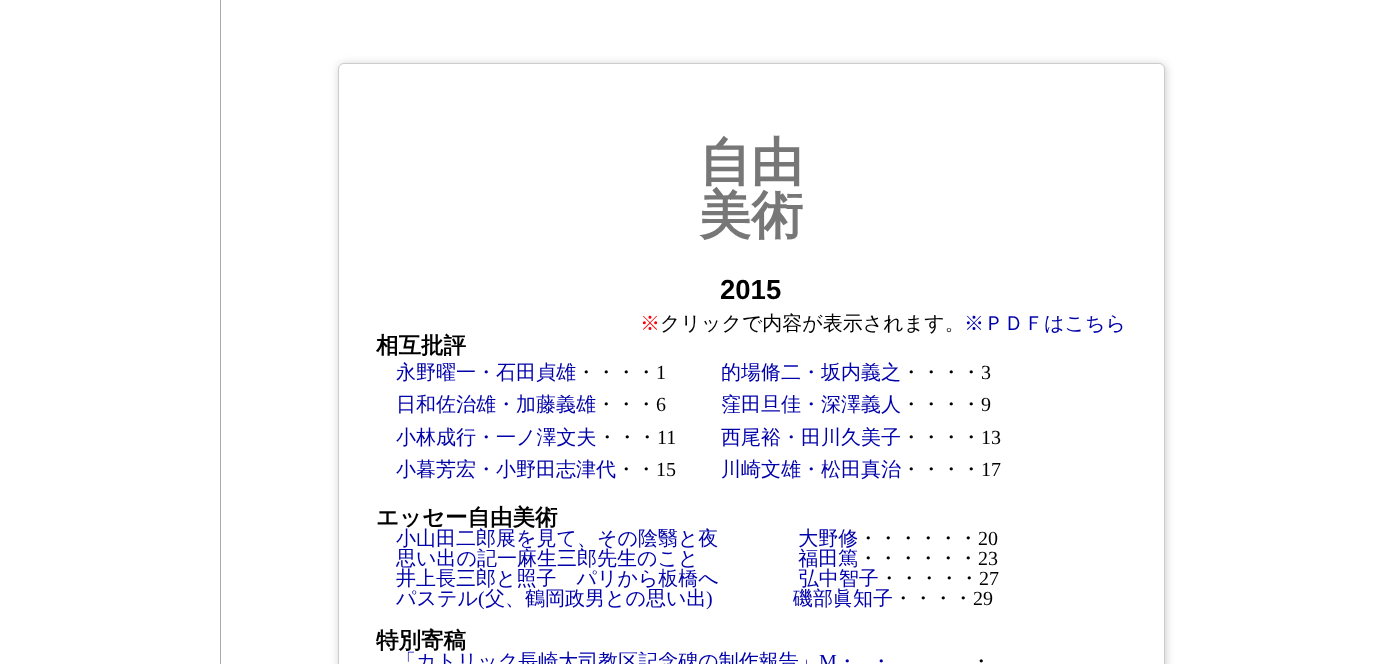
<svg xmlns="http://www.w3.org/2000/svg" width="1384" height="664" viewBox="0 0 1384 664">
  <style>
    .t1 { font: bold 52px WenQuanYi Zen Hei; fill: #777; }
    .t2 { font: bold 27.5px Liberation Sans; fill: #000; }
    .t3 { font: 500 20px WenQuanYi Zen Hei; fill: #f00; }
    .t4 { font: 500 20px WenQuanYi Zen Hei; fill: #000; }
    .t5 { font: 500 20px WenQuanYi Zen Hei; fill: #00a; }
    .t6 { font: bold 22.5px WenQuanYi Zen Hei; fill: #000; }
    .t7 { font: 20px Liberation Serif; fill: #000; }
    .t8 { font: 20px Liberation Serif; fill: #00a; }
  </style>
  <rect width="100%" height="100%" fill="#fff"/>
  <rect x="220" y="0" width="1" height="664" fill="#aaa"/>
  <rect x="339" y="64" width="827" height="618" rx="6" fill="#ccc" filter="blur(4px)"/>
  <rect x="338.5" y="63.5" width="826" height="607" rx="5.5" fill="#fff" stroke="#ccc"/>
  <text x="699" y="180" class="t1">自由</text>
  <text x="699" y="233" class="t1">美術</text>
  <text x="720" y="299" class="t2">2015</text>
  <text x="640" y="330" class="t3">※</text>
  <text x="660" y="330" class="t4">クリックで内容が表示されます。</text>
  <text x="964" y="330" class="t5">※ＰＤＦはこちら</text>
  <text x="376" y="353" class="t6">相互批評</text>
  <text x="396" y="379" class="t5">永野曜一・石田貞雄</text>
  <text x="576" y="379" class="t4">・・・・</text>
  <text x="656" y="379" class="t7">1</text>
  <text x="721" y="379" class="t5">的場脩二・坂内義之</text>
  <text x="901" y="379" class="t4">・・・・</text>
  <text x="981" y="379" class="t7">3</text>
  <text x="396" y="411" class="t5">日和佐治雄・加藤義雄</text>
  <text x="596" y="411" class="t4">・・・</text>
  <text x="656" y="411" class="t7">6</text>
  <text x="721" y="411" class="t5">窪田旦佳・深澤義人</text>
  <text x="901" y="411" class="t4">・・・・</text>
  <text x="981" y="411" class="t7">9</text>
  <text x="396" y="444" class="t5">小林成行・一ノ澤文夫</text>
  <text x="597" y="444" class="t4">・・・</text>
  <text x="657" y="444" class="t7">11</text>
  <text x="721" y="444" class="t5">西尾裕・田川久美子</text>
  <text x="901" y="444" class="t4">・・・・</text>
  <text x="981" y="444" class="t7">13</text>
  <text x="396" y="476" class="t5">小暮芳宏・小野田志津代</text>
  <text x="616" y="476" class="t4">・・</text>
  <text x="656" y="476" class="t7">15</text>
  <text x="721" y="476" class="t5">川崎文雄・松田真治</text>
  <text x="901" y="476" class="t4">・・・・</text>
  <text x="981" y="476" class="t7">17</text>
  <text x="376" y="525" class="t6">エッセー自由美術</text>
  <text x="396" y="545" class="t5">小山田二郎展を見て、その陰翳と夜　　　　大野修</text>
  <text x="858" y="545" class="t4">・・・・・・</text>
  <text x="978" y="545" class="t7">20</text>
  <text x="396" y="565" class="t5">思い出の記一麻生三郎先生のこと　　　　　福田篤</text>
  <text x="858" y="565" class="t4">・・・・・・</text>
  <text x="978" y="565" class="t7">23</text>
  <text x="396" y="585" class="t5">井上長三郎と照子　パリから板橋へ　　　　弘中智子</text>
  <text x="879" y="585" class="t4">・・・・・</text>
  <text x="979" y="585" class="t7">27</text>
  <text x="396" y="605" class="t5">パステル</text>
  <text x="478" y="605" class="t8">(</text>
  <text x="485" y="605" class="t5">父、鶴岡政男との思い出</text>
  <text x="706" y="605" class="t8">)</text>
  <text x="793" y="605" class="t5">磯部眞知子</text>
  <text x="893" y="605" class="t4">・・・・</text>
  <text x="973" y="605" class="t7">29</text>
  <text x="376" y="648" class="t6">特別寄稿</text>
  <text x="396" y="668" class="t5">「カトリック長崎大司教区記念碑の制作報告」</text>
  <text x="819" y="668" class="t8">M</text>
  <text x="837" y="668" class="t5">・</text>
  <text x="871" y="668" class="t5">・</text>
  <text x="971" y="668" class="t4">・</text>
</svg>
